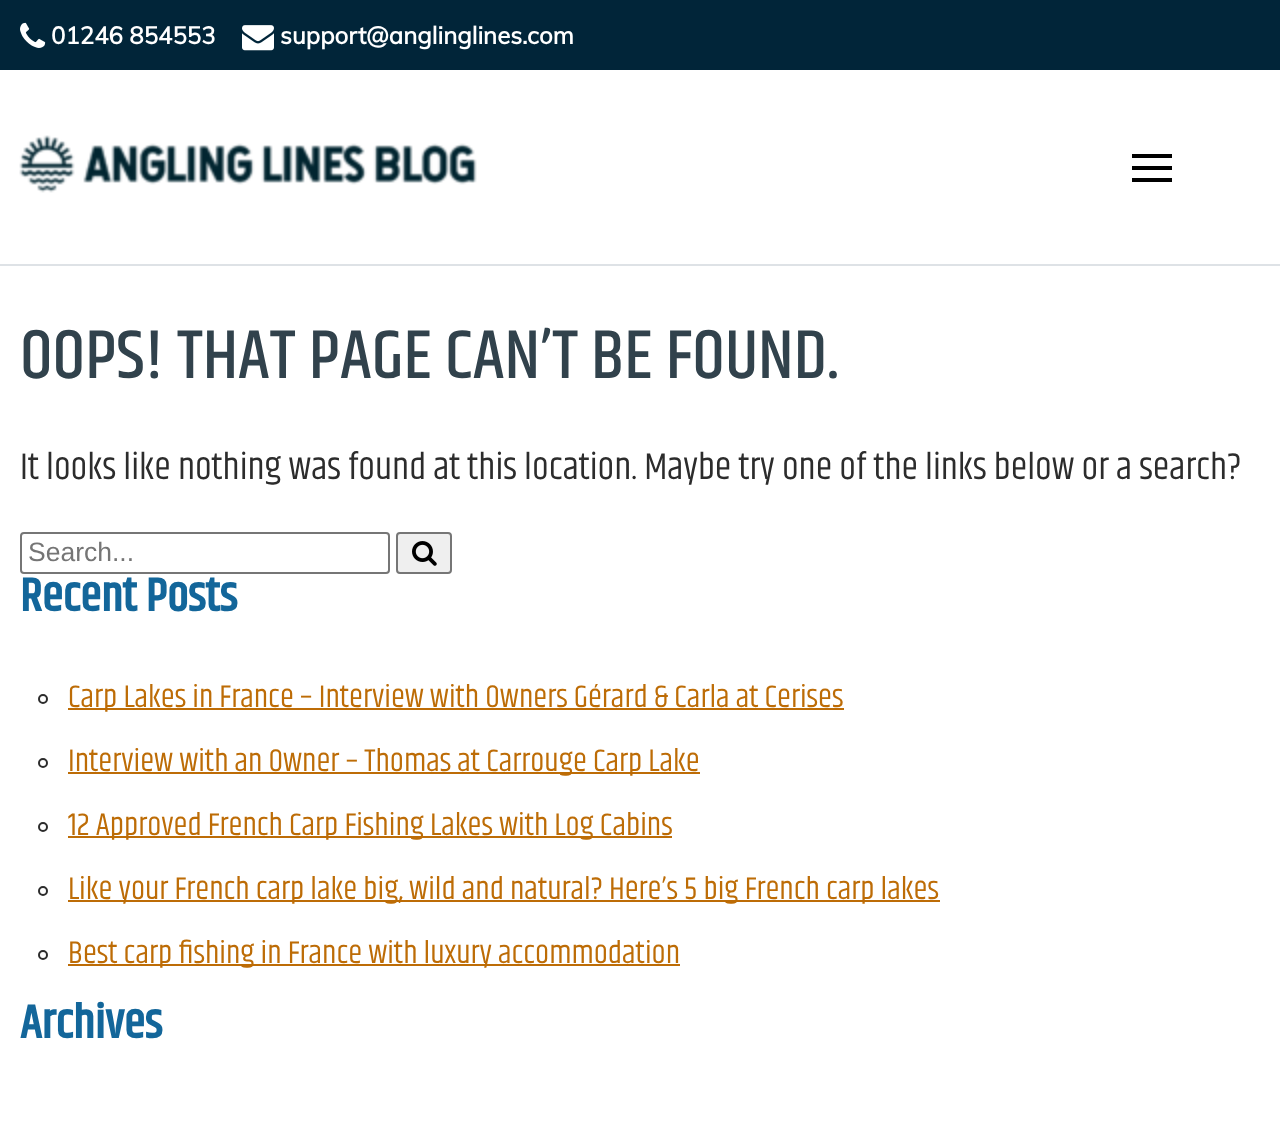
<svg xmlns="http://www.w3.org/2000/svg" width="1280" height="1126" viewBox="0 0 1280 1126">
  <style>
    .t1 { font: bold 24px Muli; fill: #fff; }
    .t2 { font: 500 70px Khand; fill: #31424c; }
    .t3 { font: 37.8px Khand; fill: #2c2c2c; }
    .t4 { font: 26.5px Liberation Sans; fill: #757575; }
    .t5 { font: bold 47.5px Khand; fill: #13669a; }
    .t6 { font: 31.9px Khand; fill: #bd6c06; }
  </style>
  <rect width="100%" height="100%" fill="#fff"/>
  <rect x="0" y="0" width="1280" height="70" fill="#012539"/>
  <image x="20" y="22" width="26" height="26" href="images/1.png"/>
  <text x="51" y="44" class="t1">01246 854553</text>
  <image x="242" y="25" width="32" height="26" href="images/2.png"/>
  <text x="280" y="44" class="t1">support@anglinglines.com</text>
  <rect x="0" y="264" width="1280" height="2" fill="#dee2e6"/>
  <image x="19" y="135" width="458" height="58" href="images/3.png"/>
  <path d="M1132 166H1172V170H1132ZM1132 154H1172V158H1132ZM1132 178H1172V182H1132Z" fill="#000"/>
  <text x="20" y="378" class="t2">OOPS! THAT PAGE CAN’T BE FOUND.</text>
  <text x="20" y="479" class="t3">It looks like nothing was found at this location. Maybe try one of the links below or a search?</text>
  <rect x="21" y="533" width="368" height="40" rx="3" fill="none" stroke="#767676" stroke-width="2"/>
  <text x="28" y="561" class="t4">Search...</text>
  <rect x="397" y="533" width="54" height="40" rx="3" fill="#efefef" stroke="#767676" stroke-width="2"/>
  <image x="412" y="541" width="25" height="25" href="images/4.png"/>
  <text x="20" y="611" class="t5">Recent Posts</text>
  <circle cx="43" cy="699" r="4" fill="none" stroke="#2c2c2c" stroke-width="2"/>
  <rect x="68" y="708" width="776" height="2" fill="#bd6c06"/>
  <text x="68" y="707" class="t6">Carp Lakes in France – Interview with Owners Gérard &amp; Carla at Cerises</text>
  <circle cx="43" cy="763" r="4" fill="none" stroke="#2c2c2c" stroke-width="2"/>
  <rect x="68" y="772" width="632" height="2" fill="#bd6c06"/>
  <text x="68" y="771" class="t6">Interview with an Owner – Thomas at Carrouge Carp Lake</text>
  <circle cx="43" cy="827" r="4" fill="none" stroke="#2c2c2c" stroke-width="2"/>
  <rect x="68" y="836" width="604" height="2" fill="#bd6c06"/>
  <text x="68" y="835" class="t6">12 Approved French Carp Fishing Lakes with Log Cabins</text>
  <circle cx="43" cy="891" r="4" fill="none" stroke="#2c2c2c" stroke-width="2"/>
  <rect x="68" y="900" width="872" height="2" fill="#bd6c06"/>
  <text x="68" y="899" class="t6">Like your French carp lake big, wild and natural? Here’s 5 big French carp lakes</text>
  <circle cx="43" cy="955" r="4" fill="none" stroke="#2c2c2c" stroke-width="2"/>
  <rect x="68" y="964" width="612" height="2" fill="#bd6c06"/>
  <text x="68" y="963" class="t6">Best carp fishing in France with luxury accommodation</text>
  <text x="20" y="1038" class="t5">Archives</text>
</svg>
